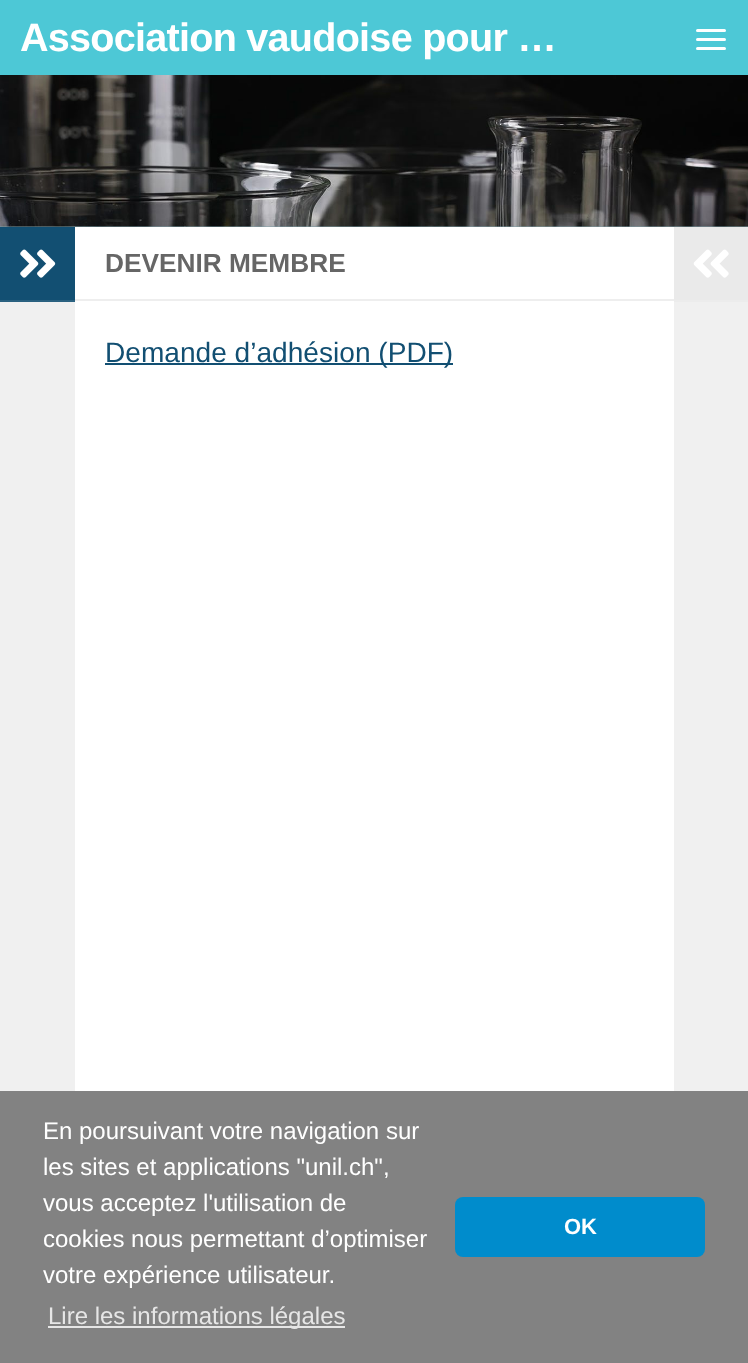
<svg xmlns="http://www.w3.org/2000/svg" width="748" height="1363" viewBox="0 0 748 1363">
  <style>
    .t1 { font: bold 39.6px Liberation Sans; letter-spacing: -0.75px; fill: #fff; }
    .t2 { font: bold 26.25px Liberation Sans; fill: #666; }
    .t3 { font: 28.1px Liberation Sans; fill: #124f72; }
    .t4 { font: 24px Liberation Sans; fill: #fff; }
    .t5 { font: 24px Liberation Sans; fill: #e6e6e6; }
    .t6 { font: bold 22px Liberation Sans; fill: #fff; }
  </style>
  <rect width="100%" height="100%" fill="#fff"/>
  <rect x="0" y="226" width="748" height="1" fill="#7f9ea6"/>
  <rect x="0" y="0" width="748" height="75" fill="#4dc8d6"/>
  <text x="20" y="51" class="t1">Association vaudoise pour …</text>
  <rect x="696" y="29" width="30" height="3" rx="1.5" fill="#fff"/>
  <rect x="696" y="38" width="30" height="3" rx="1.5" fill="#fff"/>
  <rect x="696" y="47" width="30" height="3" rx="1.5" fill="#fff"/>
  <image x="0" y="75" width="748" height="152" href="images/1.png"/>
  <rect x="0" y="302" width="75" height="789" fill="#f0f0f0"/>
  <rect x="0" y="227" width="75" height="73" fill="#124f72"/>
  <rect x="0" y="300" width="75" height="2" fill="#2a6180"/>
  <image x="20" y="249" width="36" height="29" href="images/2.png"/>
  <rect x="75" y="299" width="599" height="2" fill="#eee"/>
  <text x="105" y="272" class="t2">DEVENIR MEMBRE</text>
  <rect x="105" y="363" width="348" height="2" fill="#124f72"/>
  <text x="105" y="362" class="t3">Demande d’adhésion (PDF)</text>
  <rect x="674" y="227" width="74" height="73" fill="#eaeaea"/>
  <rect x="674" y="300" width="74" height="2" fill="#ececec"/>
  <image x="693" y="249" width="36" height="29" href="images/3.png"/>
  <rect x="674" y="302" width="74" height="789" fill="#f0f0f0"/>
  <rect x="0" y="1091" width="748" height="272" fill="#828282"/>
  <text x="43" y="1139" class="t4">En poursuivant votre navigation sur</text>
  <text x="43" y="1175" class="t4">les sites et applications "unil.ch",</text>
  <text x="43" y="1211" class="t4">vous acceptez l'utilisation de</text>
  <text x="43" y="1247" class="t4">cookies nous permettant d’optimiser</text>
  <text x="43" y="1283" class="t4">votre expérience utilisateur.</text>
  <rect x="48" y="1326" width="297" height="2" fill="#e6e6e6"/>
  <text x="48" y="1324" class="t5">Lire les informations légales</text>
  <rect x="455" y="1197" width="250" height="60" rx="8" fill="#008ccc"/>
  <text x="564" y="1234" class="t6">OK</text>
</svg>
